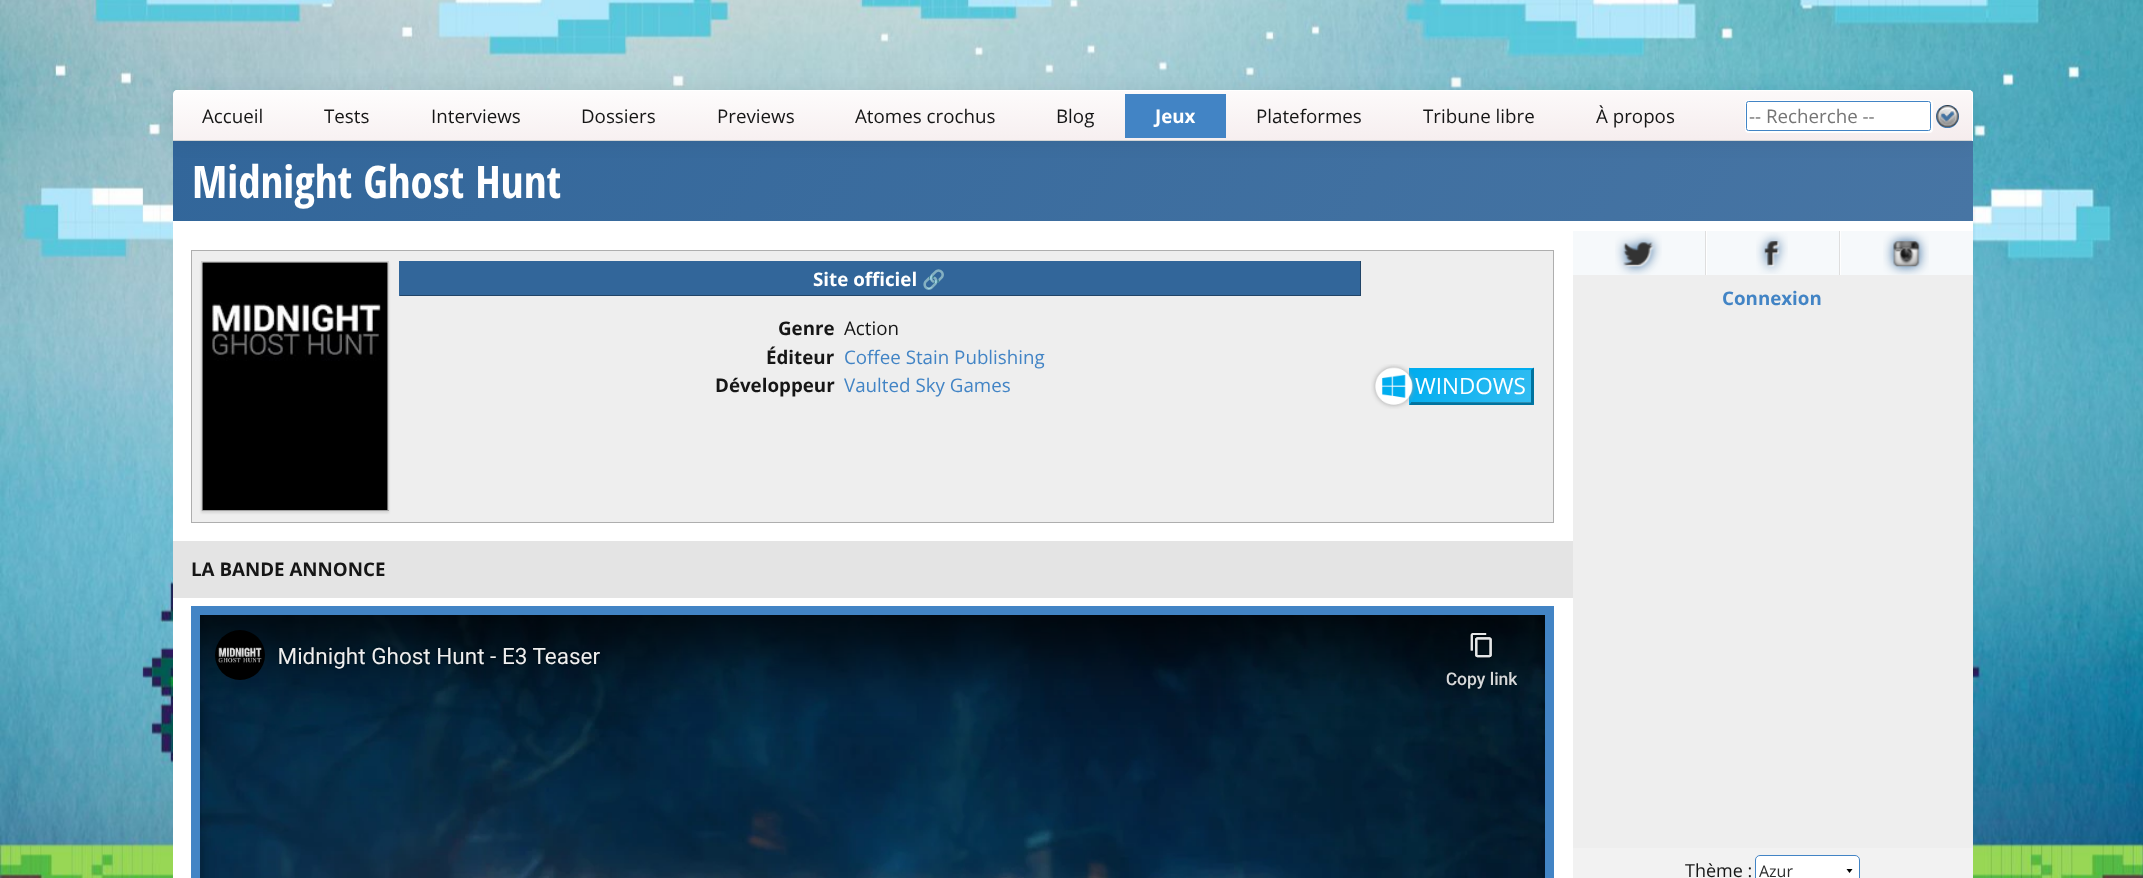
<svg xmlns="http://www.w3.org/2000/svg" width="2143" height="878" viewBox="0 0 2143 878">
  <style>
    .t1 { font: 18.75px Open Sans; fill: #161616; }
    .t2 { font: bold 18.75px Open Sans; fill: #fff; }
    .t3 { font: 18.75px Open Sans; fill: #757575; }
    .t4 { font: bold 45px Open Sans Condensed; fill: #fff; }
    .t5 { font: bold 18.75px Noto Color Emoji; fill: #fff; }
    .t6 { font: bold 18.75px Open Sans; fill: #161616; }
    .t7 { font: 18.75px Open Sans; fill: #4284c5; }
    .t8 { font: 22.5px Open Sans; fill: #fff; }
    .t9 { font: bold 18.75px Open Sans; fill: #4284c5; }
    .t10 { font: 18px Open Sans; fill: #161616; }
    .t11 { font: 16px Open Sans; fill: #2e2e2e; }
  </style>
  <defs>
    <linearGradient id="g1" gradientUnits="userSpaceOnUse" x1="380" y1="-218" x2="1765" y2="581"><stop offset="0" stop-color="#32669a"/><stop offset="1" stop-color="#4775a4"/></linearGradient>
    <linearGradient id="g2" gradientUnits="userSpaceOnUse" x1="1072" y1="74" x2="1073" y2="157"><stop offset="0" stop-color="#fff"/><stop offset="0.95" stop-color="#f5eced"/><stop offset="1" stop-color="#000"/></linearGradient>
    <linearGradient id="g3" gradientUnits="userSpaceOnUse" x1="1419" y1="356" x2="1523" y2="416"><stop offset="0" stop-color="#fff" stop-opacity="0"/><stop offset="1" stop-color="#fff" stop-opacity="0.2"/></linearGradient>
  </defs>
  <rect width="100%" height="100%" fill="#fff"/>
  <image x="0" y="0" width="2143" height="878" href="images/1.png"/>
  <rect x="173" y="141" width="1800" height="80" fill="url(#g1)"/>
  <rect x="173" y="90" width="1800" height="51" rx="4" fill="#00000012" filter="blur(9.5px)"/>
  <path d="M177 90H1969C1971 90 1973 92 1973 94V141H173V94C173 92 175 90 177 90Z" fill="url(#g2)"/>
  <path d="M173 140V141H1973V94C1973 93 1973 92 1972 91V140Z" fill="#d4d4d4"/>
  <path d="M176 91H1969C1971 91 1972 93 1972 95V141H1973V94C1973 92 1971 90 1969 90H177C176 90 174 91 174 92Z" fill="#fff"/>
  <text x="202" y="123" class="t1">Accueil</text>
  <text x="324" y="123" class="t1">Tests</text>
  <text x="431" y="123" class="t1">Interviews</text>
  <text x="581" y="123" class="t1">Dossiers</text>
  <text x="717" y="123" class="t1">Previews</text>
  <text x="855" y="123" class="t1">Atomes crochus</text>
  <text x="1056" y="123" class="t1">Blog</text>
  <rect x="1125" y="94" width="101" height="44" fill="#4284c5"/>
  <text x="1155" y="123" class="t2">Jeux</text>
  <text x="1256" y="123" class="t1">Plateformes</text>
  <text x="1423" y="123" class="t1">Tribune libre</text>
  <text x="1596" y="123" class="t1">À propos</text>
  <rect x="1745" y="100" width="188" height="33" rx="4" fill="#fff"/>
  <rect x="1746.5" y="101.5" width="184" height="29" rx="2" fill="none" stroke="#4284c5"/>
  <text x="1749" y="123" class="t3">-- Recherche --</text>
  <circle cx="1947.5" cy="116.5" r="11.5" fill="#4284c5"/>
  <image x="1936" y="105" width="23" height="23" href="images/2.png"/>
  <rect x="173" y="221" width="1800" height="10" fill="#fff"/>
  <text x="192" y="198" class="t4">Midnight Ghost Hunt</text>
  <rect x="173" y="231" width="1400" height="647" fill="#fff"/>
  <rect x="191.5" y="250.5" width="1362" height="272" fill="#eee" stroke="#aeaeae"/>
  <rect x="201" y="263" width="188" height="250" fill="#0000001a" filter="blur(1px)"/>
  <rect x="201" y="261" width="188" height="1" fill="#cecece"/>
  <rect x="388" y="261" width="1" height="250" fill="#cecece"/>
  <rect x="201" y="510" width="188" height="1" fill="#a1a1a1"/>
  <rect x="201" y="261" width="1" height="250" fill="#cecece"/>
  <image x="202" y="262" width="186" height="248" href="images/3.png"/>
  <rect x="400" y="261" width="960" height="34" fill="#32669a"/>
  <rect x="1360" y="261" width="1" height="35" fill="#214467"/>
  <rect x="399" y="295" width="962" height="1" fill="#214467"/>
  <rect x="399" y="261" width="1" height="35" fill="#32669a"/>
  <text x="813" y="286" class="t2">Site officiel</text>
  <text x="922" y="286" class="t5">🔗</text>
  <text x="778" y="335" class="t6">Genre</text>
  <text x="844" y="335" class="t1">Action</text>
  <text x="766" y="364" class="t6">Éditeur</text>
  <text x="844" y="364" class="t7">Coffee Stain Publishing</text>
  <text x="715" y="392" class="t6">Développeur</text>
  <text x="844" y="392" class="t7">Vaulted Sky Games</text>
  <rect x="1409" y="368" width="125" height="37" fill="#00adef"/>
  <path d="M1534 367.5V405L1531 402.5V370Z" fill="#00739f"/>
  <path d="M1534 405H1409L1411 402H1531Z" fill="#00739f"/>
  <path d="M1409 405V367.5L1411 370V402.5Z" fill="#00adef"/>
  <rect x="1411" y="370" width="120" height="33" fill="url(#g3)"/>
  <text x="1415" y="394" class="t8">WINDOWS</text>
  <image x="1371" y="364" width="46" height="45" href="images/4.png"/>
  <rect x="173" y="541" width="1400" height="57" fill="#e4e4e4"/>
  <text x="191" y="576" class="t6">LA BANDE ANNONCE</text>
  <rect x="195.5" y="610.5" width="1354" height="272" fill="none" stroke="#4284c5" stroke-width="9"/>
  <image x="200" y="615" width="1345" height="263" href="images/5.png"/>
  <rect x="1573" y="275" width="400" height="573" fill="#eee"/>
  <rect x="1573" y="231" width="400" height="44" fill="#f6f9fb"/>
  <image x="1615" y="233" width="47" height="42" href="images/6.png"/>
  <rect x="1706" y="231" width="1" height="44" fill="#fff"/>
  <rect x="1705" y="231" width="1" height="44" fill="#dedede"/>
  <image x="1756" y="232" width="32" height="42" href="images/7.png"/>
  <rect x="1840" y="231" width="1" height="44" fill="#fff"/>
  <rect x="1839" y="231" width="1" height="44" fill="#dedede"/>
  <image x="1883" y="231" width="46" height="44" href="images/8.png"/>
  <text x="1722" y="305" class="t9">Connexion</text>
  <rect x="1573" y="848" width="400" height="30" fill="#f2f2f2"/>
  <text x="1685" y="877" class="t10">Thème :</text>
  <rect x="1756" y="856" width="103" height="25" rx="3" fill="#fff"/>
  <path d="M1846.5 869H1852.5L1849.5 873" fill="#000"/>
  <rect x="1755.5" y="855.5" width="104" height="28" rx="4.5" fill="none" stroke="#4284c5"/>
  <text x="1759" y="877" class="t11">Azur</text>
</svg>
